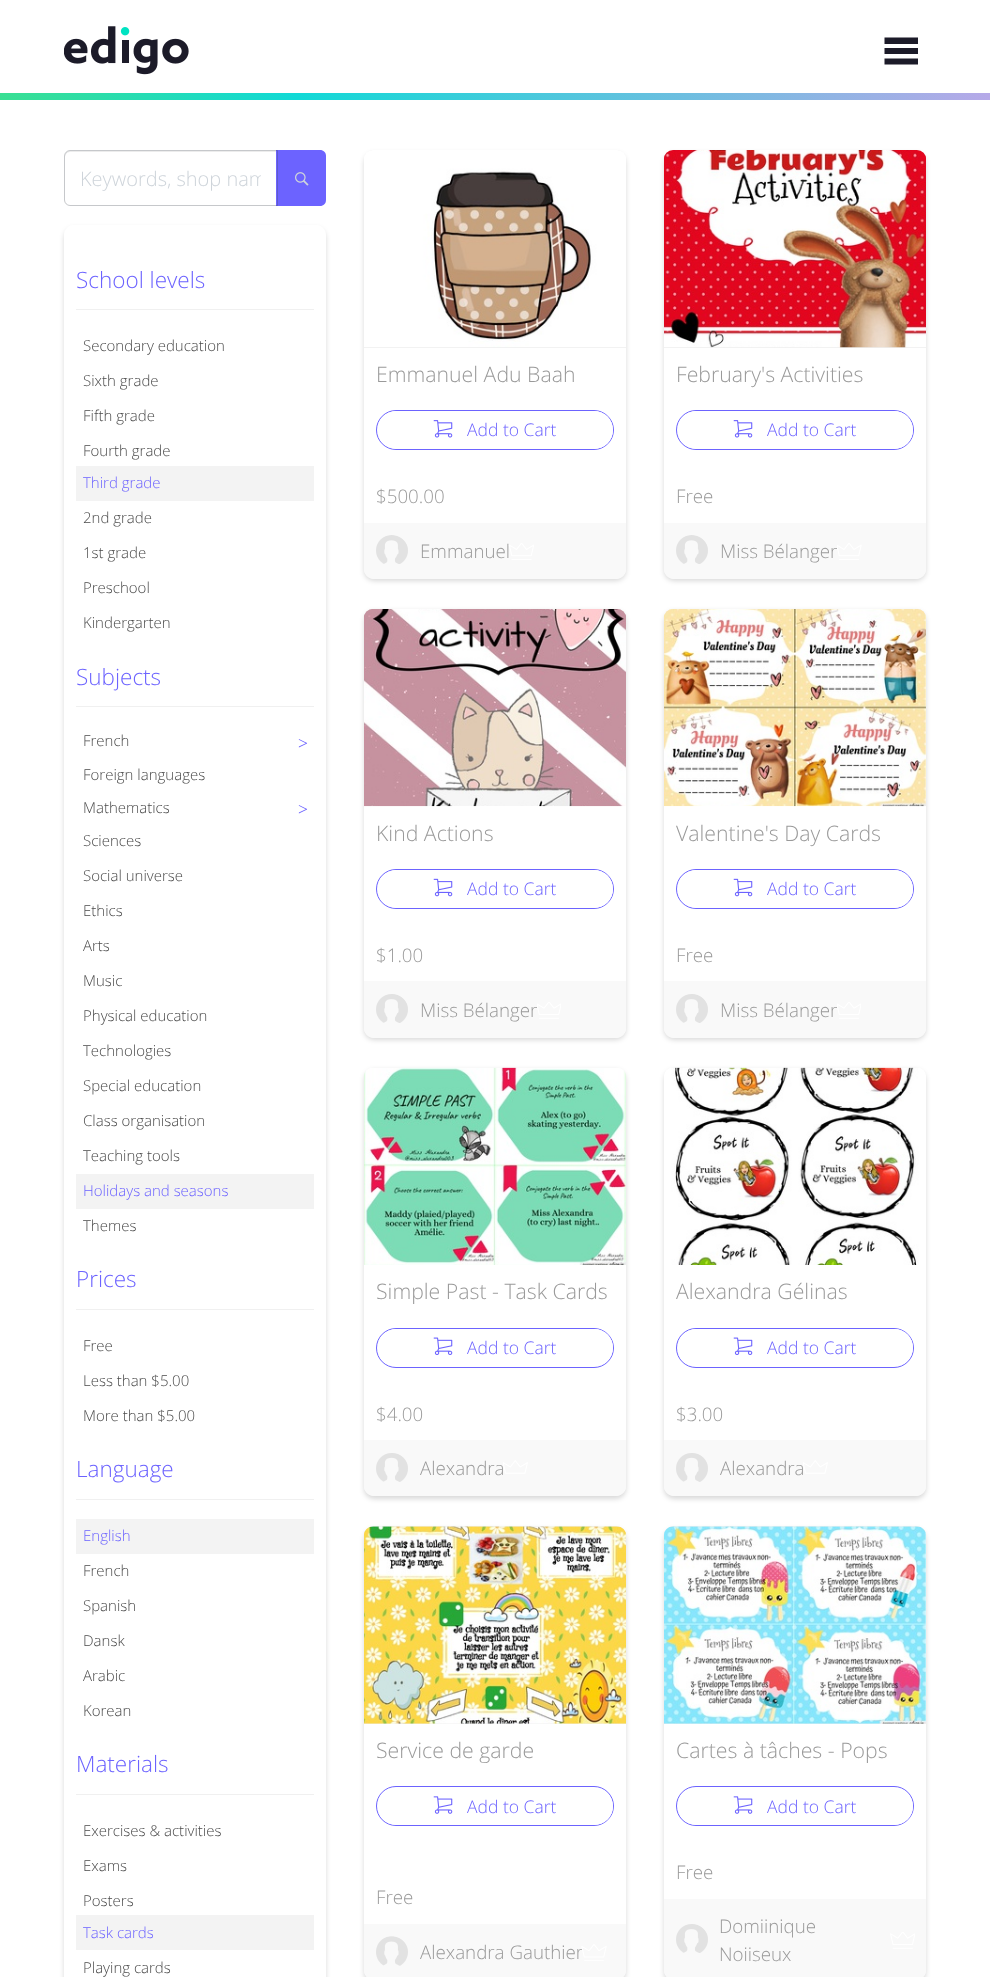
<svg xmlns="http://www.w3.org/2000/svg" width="990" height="1977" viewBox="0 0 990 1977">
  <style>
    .t1 { font: 300 20px Open Sans; fill: #ced4da; }
    .t2 { font: 300 22.5px Open Sans; fill: #6c63ff; }
    .t3 { font: 300 15px Open Sans; fill: #4a4a4a; }
    .t4 { font: 300 15px Open Sans; fill: #6c63ff; }
    .t5 { font: 17.5px Liberation Serif; fill: #6c63ff; }
    .t6 { font: 300 21.25px Open Sans; fill: #9a9a9a; }
    .t7 { font: 300 17.5px Open Sans; fill: #6c63ff; }
    .t8 { font: 300 18.75px Open Sans; fill: #9a9a9a; }
  </style>
  <defs>
    <linearGradient id="g1" gradientUnits="userSpaceOnUse" x1="990" y1="96" x2="0" y2="96"><stop offset="0" stop-color="#b6a9e8"/><stop offset="0.7" stop-color="#11d9d6"/><stop offset="1" stop-color="#39df93"/></linearGradient>
    <clipPath id="clip1"><rect x="80" y="165" width="181" height="28"/></clipPath>
    <clipPath id="clip2"><path d="M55 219H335V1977H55ZM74 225H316C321.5 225 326 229.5 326 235V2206C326 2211.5 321.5 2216 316 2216H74C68.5 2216 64 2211.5 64 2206V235C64 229.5 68.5 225 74 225Z" clip-rule="evenodd"/></clipPath>
  </defs>
  <rect width="100%" height="100%" fill="#fff"/>
  <image x="64" y="26" width="125" height="49" href="images/1.png"/>
  <path d="M918 37.5H884.5V44H918ZM884.5 48H918V54H884.5ZM884.5 58.5H918V64.5H884.5Z" fill="#1c1b29" fill-rule="evenodd"/>
  <rect x="0" y="93" width="990" height="7" fill="url(#g1)"/>
  <path d="M70 152H276V151H70C67 151 65 153 65 156V158C65 155 67 152 70 152Z" fill="#ececec"/>
  <path d="M276 150H320C323.5 150 326 152.5 326 156V200C326 203.5 323.5 206 320 206H276Z" fill="#6c63ff"/>
  <path d="M70 150.5H277.5V205.5H70C67 205.5 64.5 203 64.5 200V156C64.5 153 67 150.5 70 150.5Z" fill="none" stroke="#4349534d"/>
  <g clip-path="url(#clip1)">
    <text x="80" y="186" class="t1">Keywords, shop nam</text>
  </g>
  <image x="295" y="172" width="14" height="14" href="images/2.png"/>
  <g clip-path="url(#clip2)">
    <rect x="64" y="228" width="262" height="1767" rx="10" fill="#00000026" filter="blur(2.5px)"/>
  </g>
  <rect x="76" y="309" width="238" height="1" fill="#f0f0f0"/>
  <text x="76" y="288" class="t2">School levels</text>
  <text x="83" y="351" class="t3">Secondary education</text>
  <text x="83" y="386" class="t3">Sixth grade</text>
  <text x="83" y="421" class="t3">Fifth grade</text>
  <text x="83" y="456" class="t3">Fourth grade</text>
  <rect x="76" y="466" width="238" height="35" fill="#f3f3f3"/>
  <text x="83" y="488" class="t4">Third grade</text>
  <text x="83" y="523" class="t3">2nd grade</text>
  <text x="83" y="558" class="t3">1st grade</text>
  <text x="83" y="593" class="t3">Preschool</text>
  <text x="83" y="628" class="t3">Kindergarten</text>
  <rect x="76" y="706" width="238" height="1" fill="#f0f0f0"/>
  <text x="76" y="685" class="t2">Subjects</text>
  <text x="83" y="746" class="t3">French</text>
  <text x="298" y="749" class="t5">&gt;</text>
  <text x="83" y="780" class="t3">Foreign languages</text>
  <text x="83" y="813" class="t3">Mathematics</text>
  <text x="298" y="815" class="t5">&gt;</text>
  <text x="83" y="846" class="t3">Sciences</text>
  <text x="83" y="881" class="t3">Social universe</text>
  <text x="83" y="916" class="t3">Ethics</text>
  <text x="83" y="951" class="t3">Arts</text>
  <text x="83" y="986" class="t3">Music</text>
  <text x="83" y="1021" class="t3">Physical education</text>
  <text x="83" y="1056" class="t3">Technologies</text>
  <text x="83" y="1091" class="t3">Special education</text>
  <text x="83" y="1126" class="t3">Class organisation</text>
  <text x="83" y="1161" class="t3">Teaching tools</text>
  <rect x="76" y="1174" width="238" height="35" fill="#f3f3f3"/>
  <text x="83" y="1196" class="t4">Holidays and seasons</text>
  <text x="83" y="1231" class="t3">Themes</text>
  <rect x="76" y="1309" width="238" height="1" fill="#f0f0f0"/>
  <text x="76" y="1287" class="t2">Prices</text>
  <text x="83" y="1351" class="t3">Free</text>
  <text x="83" y="1386" class="t3">Less than $5.00</text>
  <text x="83" y="1421" class="t3">More than $5.00</text>
  <rect x="76" y="1499" width="238" height="1" fill="#f0f0f0"/>
  <text x="76" y="1477" class="t2">Language</text>
  <rect x="76" y="1519" width="238" height="35" fill="#f3f3f3"/>
  <text x="83" y="1541" class="t4">English</text>
  <text x="83" y="1576" class="t3">French</text>
  <text x="83" y="1611" class="t3">Spanish</text>
  <text x="83" y="1646" class="t3">Dansk</text>
  <text x="83" y="1681" class="t3">Arabic</text>
  <text x="83" y="1716" class="t3">Korean</text>
  <rect x="76" y="1794" width="238" height="1" fill="#f0f0f0"/>
  <text x="76" y="1772" class="t2">Materials</text>
  <text x="83" y="1836" class="t3">Exercises &amp; activities</text>
  <text x="83" y="1871" class="t3">Exams</text>
  <text x="83" y="1906" class="t3">Posters</text>
  <rect x="76" y="1915" width="238" height="35" fill="#f3f3f3"/>
  <text x="83" y="1938" class="t4">Task cards</text>
  <text x="83" y="1973" class="t3">Playing cards</text>
  <rect x="364" y="153" width="262" height="428" rx="10" fill="#00000026" filter="blur(2.5px)"/>
  <rect x="364" y="150" width="262" height="429" rx="10" fill="#fff"/>
  <path d="M374 150H616C621.5 150 626 154.5 626 160V348H364V160C364 154.5 368.5 150 374 150Z" fill="#eee"/>
  <image x="364" y="150" width="262" height="198" href="images/3.png"/>
  <text x="376" y="382" class="t6">Emmanuel Adu Baah</text>
  <rect x="376.5" y="410.5" width="237" height="39" rx="19.5" fill="none" stroke="#6c63ff"/>
  <rect x="378" y="411" width="235" height="38" rx="19" fill="#fff"/>
  <image x="433" y="420" width="20" height="18" href="images/4.png"/>
  <text x="467" y="436" class="t7">Add to Cart</text>
  <text x="376" y="503" class="t8">$500.00</text>
  <path d="M364 523H626V569C626 574.5 621.5 579 616 579H374C368.5 579 364 574.5 364 569Z" fill="#f9f9f9"/>
  <image x="376" y="535" width="32" height="29" href="images/5.png"/>
  <text x="420" y="558" class="t8">Emmanuel</text>
  <image x="508" y="543" width="26" height="17" href="images/6.png"/>
  <rect x="664" y="153" width="262" height="428" rx="10" fill="#00000026" filter="blur(2.5px)"/>
  <rect x="664" y="150" width="262" height="429" rx="10" fill="#fff"/>
  <path d="M674 150H916C921.5 150 926 154.5 926 160V348H664V160C664 154.5 668.5 150 674 150Z" fill="#eee"/>
  <image x="664" y="150" width="262" height="198" href="images/7.png"/>
  <text x="676" y="382" class="t6">February's Activities</text>
  <rect x="676.5" y="410.5" width="237" height="39" rx="19.5" fill="none" stroke="#6c63ff"/>
  <rect x="678" y="411" width="235" height="38" rx="19" fill="#fff"/>
  <image x="733" y="420" width="20" height="18" href="images/4.png"/>
  <text x="767" y="436" class="t7">Add to Cart</text>
  <text x="676" y="503" class="t8">Free</text>
  <path d="M664 523H926V569C926 574.5 921.5 579 916 579H674C668.5 579 664 574.5 664 569Z" fill="#f9f9f9"/>
  <image x="676" y="535" width="32" height="29" href="images/5.png"/>
  <text x="720" y="558" class="t8">Miss Bélanger</text>
  <image x="837" y="543" width="25" height="17" href="images/8.png"/>
  <rect x="364" y="611" width="262" height="429" rx="10" fill="#00000026" filter="blur(2.5px)"/>
  <rect x="364" y="609" width="262" height="429" rx="10" fill="#fff"/>
  <image x="364" y="609" width="262" height="198" href="images/9.png"/>
  <text x="376" y="841" class="t6">Kind Actions</text>
  <rect x="376.5" y="869.5" width="237" height="39" rx="19.5" fill="none" stroke="#6c63ff"/>
  <rect x="378" y="870" width="235" height="38" rx="19" fill="#fff"/>
  <image x="433" y="878" width="20" height="19" href="images/10.png"/>
  <text x="467" y="895" class="t7">Add to Cart</text>
  <text x="376" y="962" class="t8">$1.00</text>
  <path d="M364 981H626V1028C626 1033.5 621.5 1038 616 1038H374C368.5 1038 364 1033.5 364 1028Z" fill="#f9f9f9"/>
  <image x="376" y="994" width="32" height="29" href="images/11.png"/>
  <text x="420" y="1017" class="t8">Miss Bélanger</text>
  <image x="537" y="1002" width="24" height="17" href="images/12.png"/>
  <rect x="664" y="611" width="262" height="429" rx="10" fill="#00000026" filter="blur(2.5px)"/>
  <rect x="664" y="609" width="262" height="429" rx="10" fill="#fff"/>
  <image x="664" y="609" width="262" height="198" href="images/13.png"/>
  <text x="676" y="841" class="t6">Valentine's Day Cards</text>
  <rect x="676.5" y="869.5" width="237" height="39" rx="19.5" fill="none" stroke="#6c63ff"/>
  <rect x="678" y="870" width="235" height="38" rx="19" fill="#fff"/>
  <image x="733" y="878" width="20" height="19" href="images/10.png"/>
  <text x="767" y="895" class="t7">Add to Cart</text>
  <text x="676" y="962" class="t8">Free</text>
  <path d="M664 981H926V1028C926 1033.5 921.5 1038 916 1038H674C668.5 1038 664 1033.5 664 1028Z" fill="#f9f9f9"/>
  <image x="676" y="994" width="32" height="29" href="images/11.png"/>
  <text x="720" y="1017" class="t8">Miss Bélanger</text>
  <image x="837" y="1002" width="24" height="17" href="images/12.png"/>
  <rect x="364" y="1070" width="262" height="429" rx="10" fill="#00000026" filter="blur(2.5px)"/>
  <rect x="364" y="1068" width="262" height="428" rx="10" fill="#fff"/>
  <image x="364" y="1067" width="262" height="198" href="images/14.png"/>
  <text x="376" y="1299" class="t6">Simple Past - Task Cards</text>
  <rect x="376.5" y="1328.5" width="237" height="39" rx="19.5" fill="none" stroke="#6c63ff"/>
  <rect x="378" y="1329" width="235" height="37" rx="18.5" fill="#fff"/>
  <image x="433" y="1337" width="20" height="18" href="images/15.png"/>
  <text x="467" y="1354" class="t7">Add to Cart</text>
  <text x="376" y="1421" class="t8">$4.00</text>
  <path d="M364 1440H626V1486C626 1491.5 621.5 1496 616 1496H374C368.5 1496 364 1491.5 364 1486Z" fill="#f9f9f9"/>
  <image x="376" y="1453" width="32" height="29" href="images/16.png"/>
  <text x="420" y="1475" class="t8">Alexandra</text>
  <image x="503" y="1460" width="25" height="14" href="images/17.png"/>
  <rect x="664" y="1070" width="262" height="429" rx="10" fill="#00000026" filter="blur(2.5px)"/>
  <rect x="664" y="1068" width="262" height="428" rx="10" fill="#fff"/>
  <image x="664" y="1067" width="262" height="198" href="images/18.png"/>
  <text x="676" y="1299" class="t6">Alexandra Gélinas</text>
  <rect x="676.5" y="1328.5" width="237" height="39" rx="19.5" fill="none" stroke="#6c63ff"/>
  <rect x="678" y="1329" width="235" height="37" rx="18.5" fill="#fff"/>
  <image x="733" y="1337" width="20" height="18" href="images/15.png"/>
  <text x="767" y="1354" class="t7">Add to Cart</text>
  <text x="676" y="1421" class="t8">$3.00</text>
  <path d="M664 1440H926V1486C926 1491.5 921.5 1496 916 1496H674C668.5 1496 664 1491.5 664 1486Z" fill="#f9f9f9"/>
  <image x="676" y="1453" width="32" height="29" href="images/16.png"/>
  <text x="720" y="1475" class="t8">Alexandra</text>
  <image x="803" y="1460" width="25" height="14" href="images/17.png"/>
  <rect x="364" y="1529" width="262" height="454" rx="10" fill="#00000026" filter="blur(2.5px)"/>
  <rect x="364" y="1526" width="262" height="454" rx="10" fill="#fff"/>
  <path d="M374 1526H616C621.5 1526 626 1530.5 626 1536V1724H364V1536C364 1530.5 368.5 1526 374 1526Z" fill="#eee"/>
  <image x="364" y="1526" width="262" height="198" href="images/19.png"/>
  <text x="376" y="1758" class="t6">Service de garde</text>
  <rect x="376.5" y="1786.5" width="237" height="39" rx="19.5" fill="none" stroke="#6c63ff"/>
  <rect x="378" y="1788" width="235" height="37" rx="18.5" fill="#fff"/>
  <image x="433" y="1796" width="20" height="18" href="images/20.png"/>
  <text x="467" y="1813" class="t7">Add to Cart</text>
  <text x="376" y="1904" class="t8">Free</text>
  <path d="M364 1924H626V1970C626 1975.5 621.5 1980 616 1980H374C368.5 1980 364 1975.5 364 1970Z" fill="#f9f9f9"/>
  <image x="376" y="1936" width="32" height="30" href="images/21.png"/>
  <text x="420" y="1959" class="t8">Alexandra Gauthier</text>
  <image x="581" y="1944" width="26" height="17" href="images/22.png"/>
  <rect x="664" y="1529" width="262" height="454" rx="10" fill="#00000026" filter="blur(2.5px)"/>
  <rect x="664" y="1526" width="262" height="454" rx="10" fill="#fff"/>
  <path d="M674 1526H916C921.5 1526 926 1530.5 926 1536V1724H664V1536C664 1530.5 668.5 1526 674 1526Z" fill="#eee"/>
  <image x="664" y="1526" width="262" height="198" href="images/23.png"/>
  <text x="676" y="1758" class="t6">Cartes à tâches - Pops</text>
  <rect x="676.5" y="1786.5" width="237" height="39" rx="19.5" fill="none" stroke="#6c63ff"/>
  <rect x="678" y="1788" width="235" height="37" rx="18.5" fill="#fff"/>
  <image x="733" y="1796" width="20" height="18" href="images/20.png"/>
  <text x="767" y="1813" class="t7">Add to Cart</text>
  <text x="676" y="1879" class="t8">Free</text>
  <path d="M664 1899H926V1970C926 1975.5 921.5 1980 916 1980H674C668.5 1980 664 1975.5 664 1970Z" fill="#f9f9f9"/>
  <image x="676" y="1924" width="32" height="29" href="images/11.png"/>
  <text x="719" y="1933" class="t8">Domiinique</text>
  <text x="719" y="1961" class="t8">Noiiseux</text>
  <image x="890" y="1932" width="25" height="17" href="images/24.png"/>
</svg>
